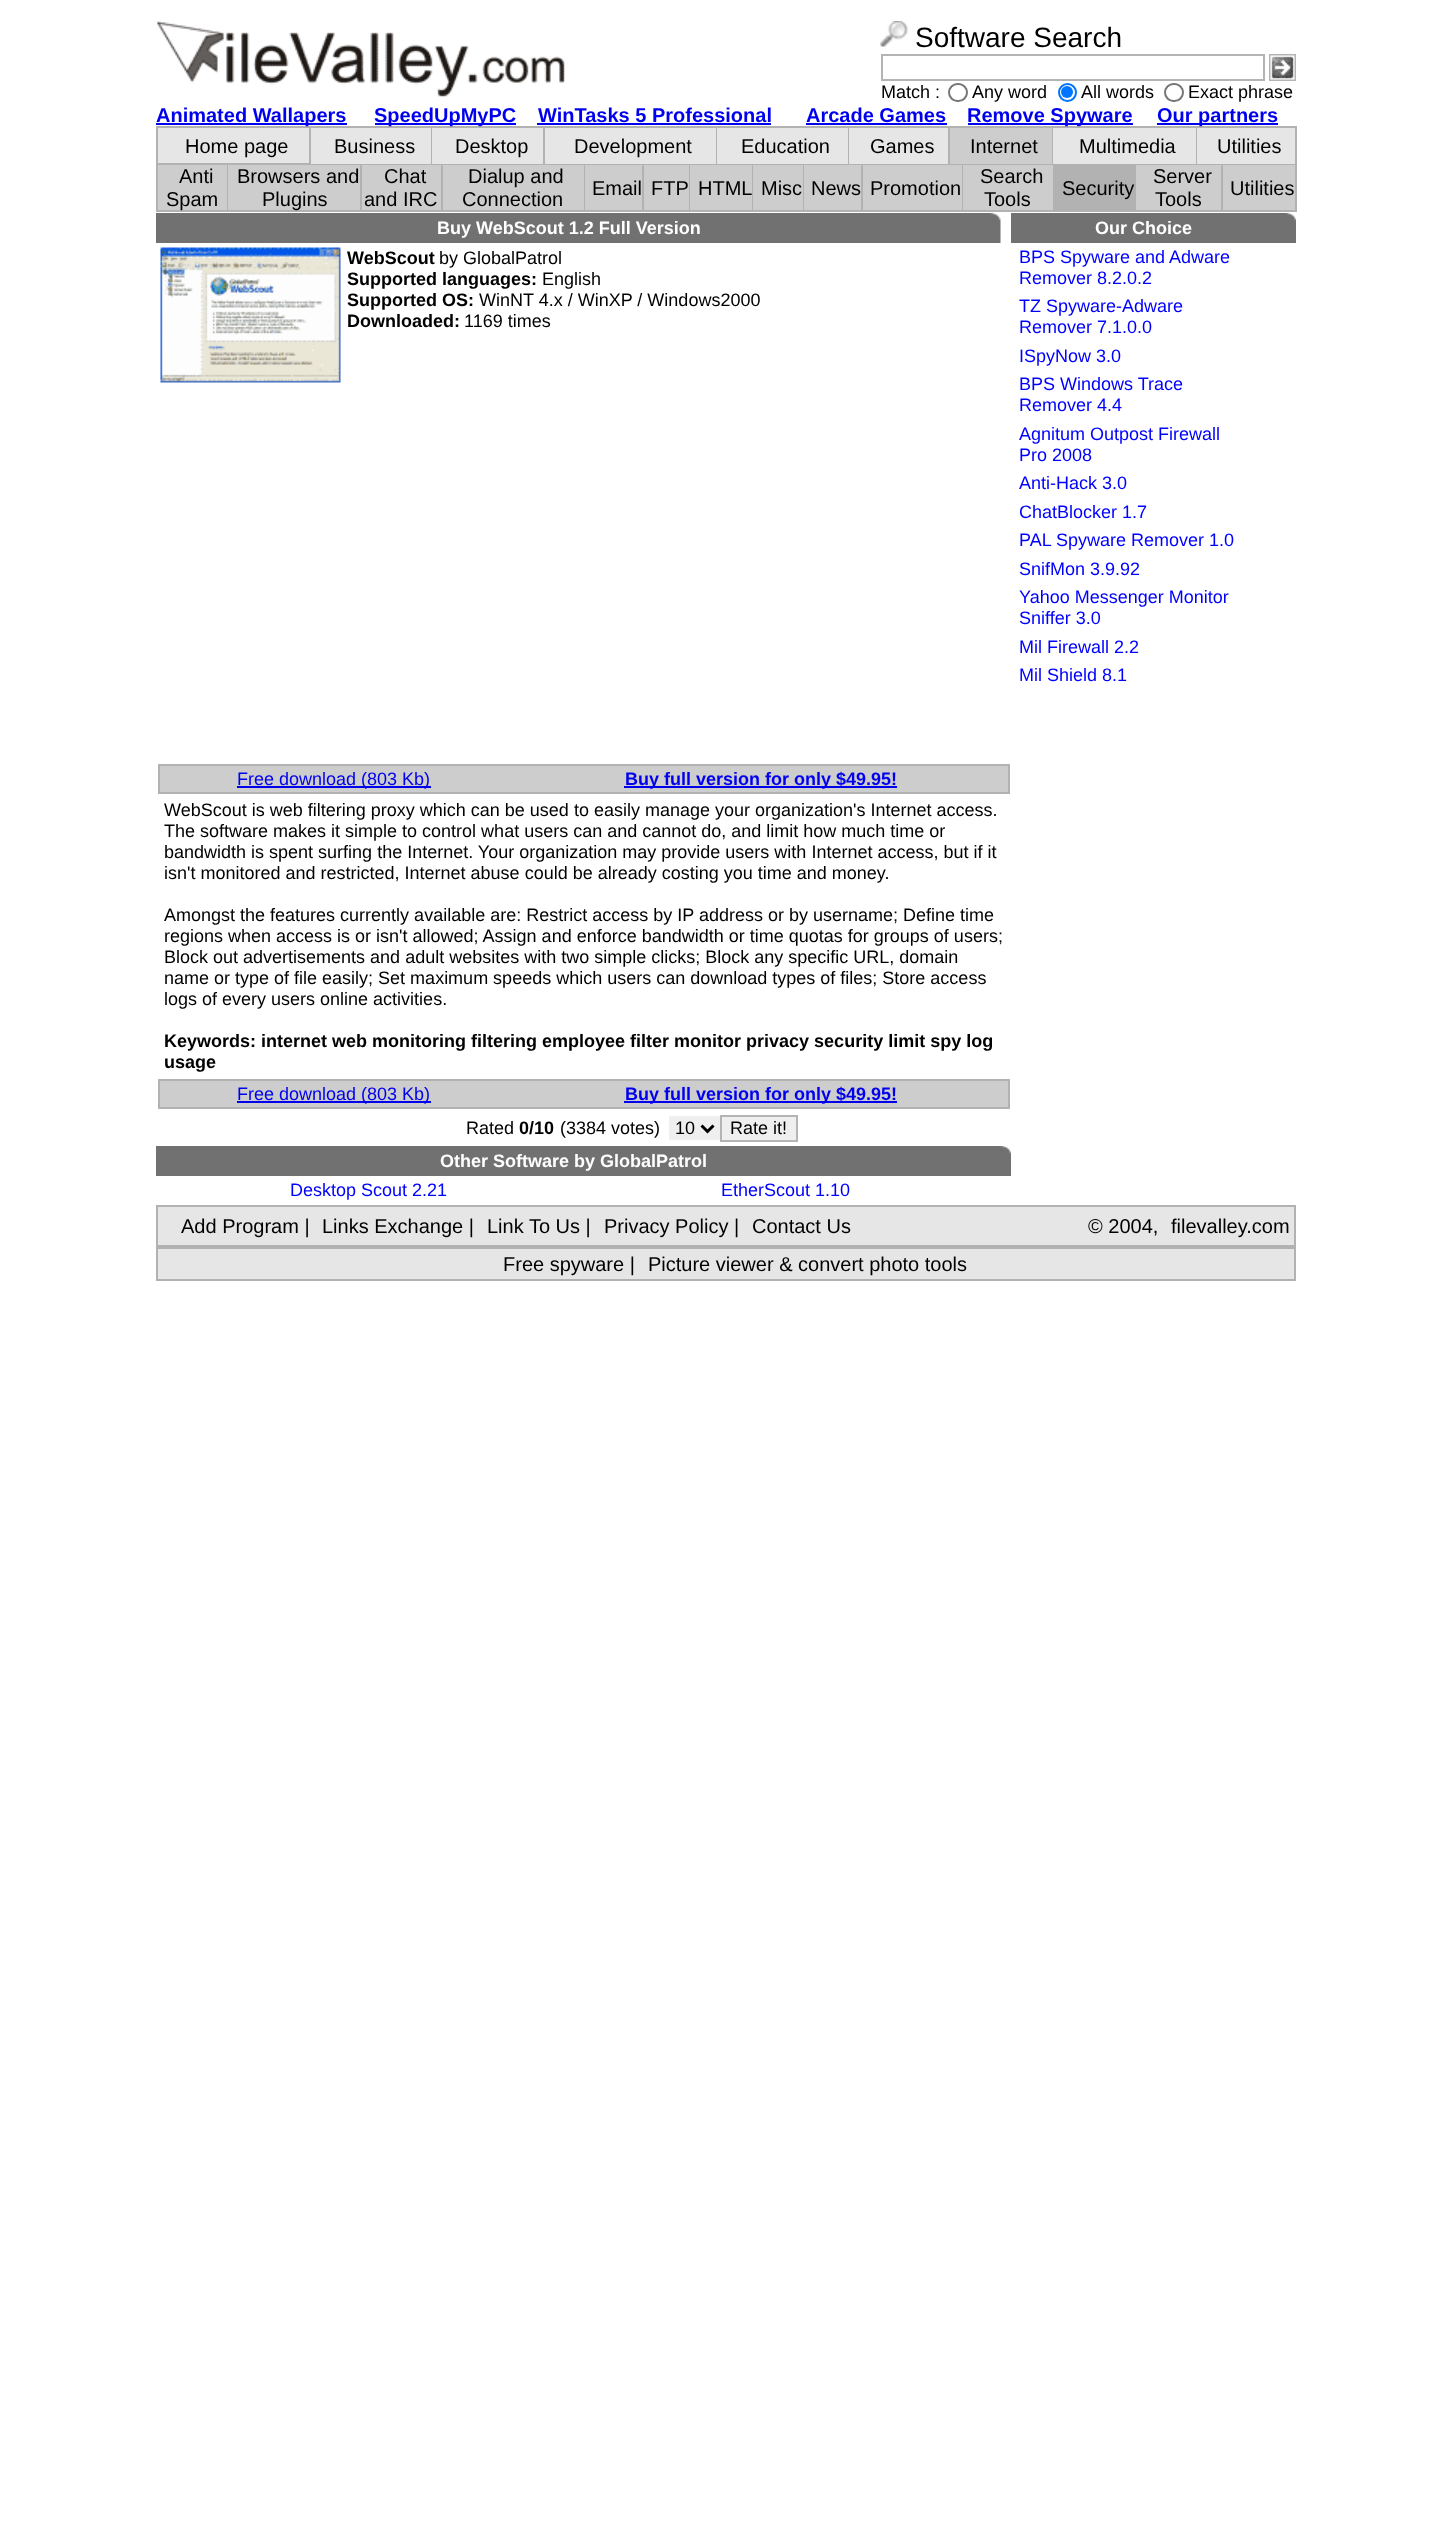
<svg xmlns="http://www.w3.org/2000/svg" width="1456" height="2536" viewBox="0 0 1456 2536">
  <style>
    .t1 { font: 28px Liberation Sans; fill: #000; }
    .t2 { font: 18px Liberation Sans; fill: #000; }
    .t3 { font: bold 20px Liberation Sans; fill: #00e; }
    .t4 { font: 20px Liberation Sans; fill: #000; }
    .t5 { font: bold 18px Liberation Sans; fill: #fff; }
    .t6 { font: bold 18px Liberation Sans; fill: #000; }
    .t7 { font: 18px Liberation Sans; fill: #00e; }
    .t8 { font: bold 18px Liberation Sans; fill: #00e; }
    .t9 { font: 18px Liberation Sans; fill: #00f; }
  </style>
  <rect width="100%" height="100%" fill="#fff"/>
  <image x="156" y="21" width="409" height="77" href="images/1.png"/>
  <image x="880" y="21" width="28" height="26" href="images/2.png"/>
  <text x="915" y="47" class="t1">Software Search</text>
  <rect x="882" y="55" width="382" height="25" fill="none" stroke="#b4b4b4" stroke-width="2"/>
  <rect x="1270" y="55" width="25" height="25" fill="none" stroke="#b4b4b4" stroke-width="2"/>
  <image x="1270" y="55" width="25" height="25" href="images/3.png"/>
  <text x="881" y="98" class="t2">Match :</text>
  <rect x="949" y="84" width="18" height="17" rx="8.5" fill="none" stroke="#767676" stroke-width="2"/>
  <text x="972" y="98" class="t2">Any word</text>
  <circle cx="1067.5" cy="92.5" r="8.5" fill="none" stroke="#0075ff" stroke-width="2"/>
  <circle cx="1067" cy="92" r="6" fill="#0075ff"/>
  <text x="1081" y="98" class="t2">All words</text>
  <rect x="1165" y="84" width="18" height="17" rx="8.5" fill="none" stroke="#767676" stroke-width="2"/>
  <text x="1188" y="98" class="t2">Exact phrase</text>
  <rect x="156" y="123" width="191" height="2" fill="#00e"/>
  <rect x="157" y="127" width="153" height="37" fill="#e6e6e6" stroke="#b2b2b2" stroke-width="2"/>
  <rect x="311" y="126" width="985" height="2" fill="#b2b2b2"/>
  <text x="156" y="122" class="t3">Animated Wallapers</text>
  <rect x="375" y="123" width="141" height="2" fill="#00e"/>
  <rect x="431" y="126" width="1" height="39" fill="#b2b2b2"/>
  <text x="374" y="122" class="t3">SpeedUpMyPC</text>
  <text x="538" y="122" class="t3">WinTasks 5 Professional</text>
  <rect x="537" y="123" width="234" height="2" fill="#00e"/>
  <text x="806" y="122" class="t3">Arcade Games</text>
  <rect x="806" y="123" width="141" height="2" fill="#00e"/>
  <rect x="968" y="123" width="165" height="2" fill="#00e"/>
  <rect x="1052" y="126" width="1" height="39" fill="#b2b2b2"/>
  <text x="967" y="122" class="t3">Remove Spyware</text>
  <rect x="1157" y="123" width="121" height="2" fill="#00e"/>
  <rect x="1196" y="126" width="1" height="39" fill="#b2b2b2"/>
  <text x="1157" y="122" class="t3">Our partners</text>
  <text x="185" y="153" class="t4">Home page</text>
  <rect x="311" y="128" width="120" height="36" fill="#e6e6e6"/>
  <rect x="311" y="164" width="121" height="1" fill="#b2b2b2"/>
  <text x="334" y="153" class="t4">Business</text>
  <rect x="432" y="128" width="111" height="36" fill="#e6e6e6"/>
  <rect x="543" y="126" width="2" height="39" fill="#b2b2b2"/>
  <rect x="432" y="164" width="113" height="1" fill="#b2b2b2"/>
  <text x="455" y="153" class="t4">Desktop</text>
  <rect x="545" y="128" width="171" height="36" fill="#e6e6e6"/>
  <rect x="716" y="126" width="1" height="39" fill="#b2b2b2"/>
  <rect x="545" y="164" width="172" height="1" fill="#b2b2b2"/>
  <text x="574" y="153" class="t4">Development</text>
  <rect x="717" y="128" width="131" height="36" fill="#e6e6e6"/>
  <rect x="848" y="126" width="1" height="39" fill="#b2b2b2"/>
  <rect x="717" y="164" width="132" height="1" fill="#b2b2b2"/>
  <text x="741" y="153" class="t4">Education</text>
  <rect x="849" y="128" width="99" height="36" fill="#e6e6e6"/>
  <rect x="948" y="126" width="2" height="39" fill="#b2b2b2"/>
  <rect x="849" y="164" width="101" height="1" fill="#b2b2b2"/>
  <text x="870" y="153" class="t4">Games</text>
  <rect x="950" y="128" width="102" height="36" fill="#cdcdcd"/>
  <rect x="950" y="164" width="103" height="1" fill="#b2b2b2"/>
  <text x="970" y="153" class="t4">Internet</text>
  <rect x="1053" y="128" width="143" height="36" fill="#e6e6e6"/>
  <rect x="1053" y="164" width="144" height="1" fill="#b2b2b2"/>
  <text x="1079" y="153" class="t4">Multimedia</text>
  <rect x="1197" y="128" width="98" height="36" fill="#e6e6e6"/>
  <rect x="1295" y="126" width="2" height="86" fill="#b2b2b2"/>
  <rect x="1197" y="164" width="99" height="1" fill="#b2b2b2"/>
  <text x="1217" y="153" class="t4">Utilities</text>
  <rect x="158" y="165" width="69" height="45" fill="#cdcdcd"/>
  <rect x="227" y="165" width="1" height="47" fill="#b2b2b2"/>
  <rect x="156" y="210" width="72" height="2" fill="#b2b2b2"/>
  <rect x="156" y="165" width="2" height="47" fill="#b2b2b2"/>
  <text x="179" y="183" class="t4">Anti</text>
  <text x="166" y="206" class="t4">Spam</text>
  <rect x="228" y="165" width="132" height="45" fill="#cdcdcd"/>
  <rect x="360" y="165" width="2" height="47" fill="#b2b2b2"/>
  <rect x="228" y="210" width="134" height="2" fill="#b2b2b2"/>
  <text x="237" y="183" class="t4">Browsers and</text>
  <text x="262" y="206" class="t4">Plugins</text>
  <rect x="362" y="165" width="79" height="45" fill="#cdcdcd"/>
  <rect x="441" y="165" width="2" height="47" fill="#b2b2b2"/>
  <rect x="362" y="210" width="81" height="2" fill="#b2b2b2"/>
  <text x="384" y="183" class="t4">Chat</text>
  <text x="364" y="206" class="t4">and IRC</text>
  <rect x="443" y="165" width="141" height="45" fill="#cdcdcd"/>
  <rect x="584" y="165" width="1" height="47" fill="#b2b2b2"/>
  <rect x="443" y="210" width="142" height="2" fill="#b2b2b2"/>
  <text x="468" y="183" class="t4">Dialup and</text>
  <text x="462" y="206" class="t4">Connection</text>
  <rect x="585" y="165" width="57" height="45" fill="#cdcdcd"/>
  <rect x="642" y="165" width="2" height="47" fill="#b2b2b2"/>
  <rect x="585" y="210" width="59" height="2" fill="#b2b2b2"/>
  <text x="592" y="195" class="t4">Email</text>
  <rect x="644" y="165" width="45" height="45" fill="#cdcdcd"/>
  <rect x="689" y="165" width="1" height="47" fill="#b2b2b2"/>
  <rect x="644" y="210" width="46" height="2" fill="#b2b2b2"/>
  <text x="651" y="195" class="t4">FTP</text>
  <rect x="690" y="165" width="62" height="45" fill="#cdcdcd"/>
  <rect x="752" y="165" width="1" height="47" fill="#b2b2b2"/>
  <rect x="690" y="210" width="63" height="2" fill="#b2b2b2"/>
  <text x="698" y="195" class="t4">HTML</text>
  <rect x="753" y="165" width="50" height="45" fill="#cdcdcd"/>
  <rect x="803" y="165" width="1" height="47" fill="#b2b2b2"/>
  <rect x="753" y="210" width="51" height="2" fill="#b2b2b2"/>
  <text x="761" y="195" class="t4">Misc</text>
  <rect x="804" y="165" width="57" height="45" fill="#cdcdcd"/>
  <rect x="861" y="165" width="2" height="47" fill="#b2b2b2"/>
  <rect x="804" y="210" width="59" height="2" fill="#b2b2b2"/>
  <text x="811" y="195" class="t4">News</text>
  <rect x="863" y="165" width="99" height="45" fill="#cdcdcd"/>
  <rect x="962" y="165" width="1" height="47" fill="#b2b2b2"/>
  <rect x="863" y="210" width="100" height="2" fill="#b2b2b2"/>
  <text x="870" y="195" class="t4">Promotion</text>
  <rect x="963" y="165" width="90" height="45" fill="#cdcdcd"/>
  <rect x="1053" y="165" width="83" height="47" fill="#b2b2b2"/>
  <rect x="963" y="210" width="92" height="2" fill="#b2b2b2"/>
  <text x="980" y="183" class="t4">Search</text>
  <text x="984" y="206" class="t4">Tools</text>
  <text x="1062" y="195" class="t4">Security</text>
  <rect x="1136" y="165" width="85" height="45" fill="#cdcdcd"/>
  <rect x="1221" y="165" width="2" height="47" fill="#b2b2b2"/>
  <rect x="1136" y="210" width="160" height="2" fill="#b2b2b2"/>
  <text x="1153" y="183" class="t4">Server</text>
  <text x="1155" y="206" class="t4">Tools</text>
  <rect x="1223" y="165" width="72" height="45" fill="#cdcdcd"/>
  <text x="1230" y="195" class="t4">Utilities</text>
  <rect x="156" y="213" width="825" height="30" fill="#717171"/>
  <text x="437" y="234" class="t5">Buy WebScout 1.2 Full Version</text>
  <image x="981" y="213" width="20" height="30" href="images/4.png"/>
  <image x="160" y="247" width="181" height="136" href="images/5.png"/>
  <text x="347" y="264" class="t6">WebScout</text>
  <text x="439" y="264" class="t2">by GlobalPatrol</text>
  <text x="347" y="285" class="t6">Supported languages:</text>
  <text x="542" y="285" class="t2">English</text>
  <text x="347" y="306" class="t6">Supported OS:</text>
  <text x="479" y="306" class="t2">WinNT 4.x / WinXP / Windows2000</text>
  <text x="347" y="327" class="t6">Downloaded:</text>
  <text x="464" y="327" class="t2">1169 times</text>
  <rect x="159" y="765" width="850" height="28" fill="#cdcdcd" stroke="#b2b2b2" stroke-width="2"/>
  <rect x="237" y="786" width="194" height="2" fill="#00e"/>
  <text x="237" y="785" class="t7">Free download (803 Kb)</text>
  <rect x="624" y="786" width="273" height="2" fill="#00e"/>
  <text x="625" y="785" class="t8">Buy full version for only $49.95!</text>
  <text x="164" y="816" class="t2">WebScout is web filtering proxy which can be used to easily manage your organization's Internet access.</text>
  <text x="164" y="837" class="t2">The software makes it simple to control what users can and cannot do, and limit how much time or</text>
  <text x="164" y="858" class="t2">bandwidth is spent surfing the Internet. Your organization may provide users with Internet access, but if it</text>
  <text x="164" y="879" class="t2">isn't monitored and restricted, Internet abuse could be already costing you time and money.</text>
  <text x="164" y="921" class="t2">Amongst the features currently available are: Restrict access by IP address or by username; Define time</text>
  <text x="164" y="942" class="t2">regions when access is or isn't allowed; Assign and enforce bandwidth or time quotas for groups of users;</text>
  <text x="164" y="963" class="t2">Block out advertisements and adult websites with two simple clicks; Block any specific URL, domain</text>
  <text x="164" y="984" class="t2">name or type of file easily; Set maximum speeds which users can download types of files; Store access</text>
  <text x="164" y="1005" class="t2">logs of every users online activities.</text>
  <text x="164" y="1047" class="t6">Keywords: internet web monitoring filtering employee filter monitor privacy security limit spy log</text>
  <text x="164" y="1068" class="t6">usage</text>
  <rect x="159" y="1080" width="850" height="28" fill="#cdcdcd" stroke="#b2b2b2" stroke-width="2"/>
  <rect x="237" y="1101" width="194" height="2" fill="#00e"/>
  <text x="237" y="1100" class="t7">Free download (803 Kb)</text>
  <rect x="624" y="1101" width="273" height="2" fill="#00e"/>
  <text x="625" y="1100" class="t8">Buy full version for only $49.95!</text>
  <text x="466" y="1134" class="t2">Rated</text>
  <text x="519" y="1134" class="t6">0/10</text>
  <text x="560" y="1134" class="t2">(3384 votes)</text>
  <rect x="669" y="1116" width="51" height="24" fill="#efefef"/>
  <path d="M701.5 1125.5L707.5 1131.5L713.5 1125.5" fill="none" stroke="#000" stroke-width="3"/>
  <text x="675" y="1134" class="t2">10</text>
  <rect x="721" y="1116" width="76" height="25" fill="#efefef" stroke="#b4b4b4" stroke-width="2"/>
  <text x="730" y="1134" class="t2">Rate it!</text>
  <rect x="156" y="1146" width="836" height="30" fill="#717171"/>
  <text x="440" y="1167" class="t5">Other Software by GlobalPatrol</text>
  <image x="992" y="1146" width="19" height="30" href="images/6.png"/>
  <text x="290" y="1196" class="t9">Desktop Scout 2.21</text>
  <text x="721" y="1196" class="t9">EtherScout 1.10</text>
  <rect x="1011" y="213" width="266" height="30" fill="#717171"/>
  <text x="1095" y="234" class="t5">Our Choice</text>
  <image x="1277" y="213" width="19" height="30" href="images/6.png"/>
  <text x="1019" y="263" class="t9">BPS Spyware and Adware</text>
  <text x="1019" y="284" class="t9">Remover 8.2.0.2</text>
  <text x="1019" y="312" class="t9">TZ Spyware-Adware</text>
  <text x="1019" y="333" class="t9">Remover 7.1.0.0</text>
  <text x="1019" y="362" class="t9">ISpyNow 3.0</text>
  <text x="1019" y="390" class="t9">BPS Windows Trace</text>
  <text x="1019" y="411" class="t9">Remover 4.4</text>
  <text x="1019" y="440" class="t9">Agnitum Outpost Firewall</text>
  <text x="1019" y="461" class="t9">Pro 2008</text>
  <text x="1019" y="489" class="t9">Anti-Hack 3.0</text>
  <text x="1019" y="518" class="t9">ChatBlocker 1.7</text>
  <text x="1019" y="546" class="t9">PAL Spyware Remover 1.0</text>
  <text x="1019" y="575" class="t9">SnifMon 3.9.92</text>
  <text x="1019" y="603" class="t9">Yahoo Messenger Monitor</text>
  <text x="1019" y="624" class="t9">Sniffer 3.0</text>
  <text x="1019" y="653" class="t9">Mil Firewall 2.2</text>
  <text x="1019" y="681" class="t9">Mil Shield 8.1</text>
  <rect x="157" y="1206" width="1138" height="40" fill="#e6e6e6" stroke="#b2b2b2" stroke-width="2"/>
  <text x="181" y="1233" class="t4">Add Program |</text>
  <text x="322" y="1233" class="t4">Links Exchange |</text>
  <text x="487" y="1233" class="t4">Link To Us |</text>
  <text x="604" y="1233" class="t4">Privacy Policy |</text>
  <text x="752" y="1233" class="t4">Contact Us</text>
  <text x="1088" y="1233" class="t4">© 2004,</text>
  <text x="1171" y="1233" class="t4">filevalley.com</text>
  <rect x="157" y="1248" width="1138" height="32" fill="#e6e6e6" stroke="#b2b2b2" stroke-width="2"/>
  <text x="503" y="1271" class="t4">Free spyware |</text>
  <text x="648" y="1271" class="t4">Picture viewer &amp; convert photo tools</text>
</svg>
